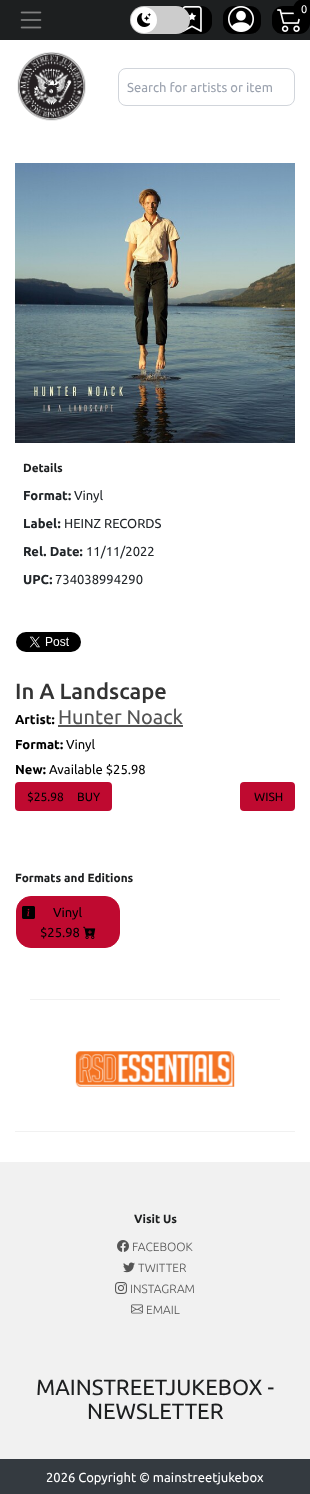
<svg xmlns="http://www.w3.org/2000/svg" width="310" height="1494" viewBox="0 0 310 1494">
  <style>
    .t1 { font: 11px Ubuntu; fill: #fff; }
    .t2 { font: 13px Ubuntu; fill: #9ca3af; }
    .t3 { font: bold 11.75px Ubuntu; fill: #1d1f20; }
    .t4 { font: bold 13px Ubuntu; fill: #212529; }
    .t5 { font: 13px Ubuntu; fill: #212529; }
    .t6 { font: 500 22px Ubuntu; fill: #333; }
    .t7 { font: bold 13px Ubuntu; fill: #000; }
    .t8 { font: 20px Ubuntu; fill: #555; }
    .t9 { font: 13px Ubuntu; fill: #000; }
    .t10 { font: 12px Ubuntu; fill: #000; }
    .t11 { font: 300 12px Ubuntu; fill: #555; }
    .t12 { font: 22px Ubuntu; fill: #1d1f20; }
    .t13 { font: 13px Ubuntu; fill: #fff; }
  </style>
  <rect width="100%" height="100%" fill="#fff"/>
  <rect x="0" y="0" width="310" height="40" fill="#1d1f20"/>
  <image x="20" y="11" width="22" height="18" href="images/1.png"/>
  <rect x="174" y="6" width="38" height="28" rx="11" fill="#000"/>
  <image x="182" y="6" width="20" height="26" href="images/3.png"/>
  <rect x="130" y="6" width="60" height="28" rx="14" fill="#ccc"/>
  <circle cx="144" cy="20" r="13" fill="#fff"/>
  <image x="137" y="13" width="14" height="14" href="images/2.png"/>
  <rect x="223" y="6" width="38" height="28" rx="11" fill="#000"/>
  <image x="228" y="6" width="26" height="26" href="images/4.png"/>
  <rect x="272" y="6" width="38" height="28" rx="11" fill="#000"/>
  <image x="277" y="9" width="23" height="23" href="images/5.png"/>
  <rect x="293" y="-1" width="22" height="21" rx="10.5" fill="#000"/>
  <text x="301" y="13" class="t1">0</text>
  <image x="17" y="52" width="69" height="69" href="images/6.png"/>
  <rect x="118.5" y="68.5" width="176" height="37" rx="7.5" fill="none" stroke="#d1d5db"/>
  <text x="127" y="92" class="t2">Search for artists or item</text>
  <image x="15" y="163" width="280" height="280" href="images/7.png"/>
  <text x="23" y="472" class="t3">Details</text>
  <text x="23" y="500" class="t4">Format:</text>
  <text x="74" y="500" class="t5">Vinyl</text>
  <text x="23" y="528" class="t4">Label:</text>
  <text x="64" y="528" class="t5">HEINZ RECORDS</text>
  <text x="23" y="556" class="t4">Rel. Date:</text>
  <text x="86" y="556" class="t5">11/11/2022</text>
  <text x="23" y="584" class="t4">UPC:</text>
  <text x="55" y="584" class="t5">734038994290</text>
  <image x="16" y="632" width="65" height="20" href="images/8.png"/>
  <text x="15" y="699" class="t6">In A Landscape</text>
  <text x="15" y="724" class="t7">Artist:</text>
  <rect x="58" y="725" width="125" height="2" fill="#555"/>
  <text x="58" y="724" class="t8">Hunter Noack</text>
  <text x="15" y="749" class="t7">Format:</text>
  <text x="66" y="749" class="t9">Vinyl</text>
  <text x="15" y="774" class="t7">New:</text>
  <text x="49" y="774" class="t9">Available $25.98</text>
  <rect x="15" y="782" width="97" height="29" rx="4" fill="#bf0a30"/>
  <text x="27" y="801" class="t10">$25.98</text>
  <text x="77" y="801" class="t10">BUY</text>
  <rect x="240" y="782" width="55" height="29" rx="4" fill="#bf0a30"/>
  <text x="254" y="801" class="t10">WISH</text>
  <text x="15" y="882" class="t3">Formats and Editions</text>
  <rect x="16.5" y="896.5" width="103" height="51" rx="14.5" fill="#bf0a30" stroke="#bf0a30"/>
  <image x="22" y="906" width="13" height="13" href="images/9.png"/>
  <text x="53" y="917" class="t9">Vinyl</text>
  <text x="40" y="937" class="t9">$25.98</text>
  <image x="83" y="926" width="13" height="13" href="images/10.png"/>
  <rect x="30" y="999" width="250" height="1" fill="#f1f1f1"/>
  <image x="75" y="1051" width="160" height="36" href="images/11.png"/>
  <rect x="15" y="1131" width="280" height="1" fill="#f1f1f1"/>
  <rect x="0" y="1162" width="310" height="297" fill="#f1f1f1"/>
  <text x="134" y="1223" class="t3">Visit Us</text>
  <image x="117" y="1240" width="12" height="12" href="images/12.png"/>
  <text x="132" y="1251" class="t11">FACEBOOK</text>
  <image x="123" y="1262" width="12" height="11" href="images/13.png"/>
  <text x="138" y="1272" class="t11">TWITTER</text>
  <image x="115" y="1282" width="12" height="12" href="images/14.png"/>
  <text x="130" y="1293" class="t11">INSTAGRAM</text>
  <image x="131" y="1304" width="12" height="10" href="images/15.png"/>
  <text x="146" y="1314" class="t11">EMAIL</text>
  <text x="36" y="1395" class="t12">MAINSTREETJUKEBOX -</text>
  <text x="87" y="1419" class="t12">NEWSLETTER</text>
  <rect x="0" y="1459" width="310" height="35" fill="#343a40"/>
  <text x="46" y="1482" class="t13">2026 Copyright © mainstreetjukebox</text>
</svg>
